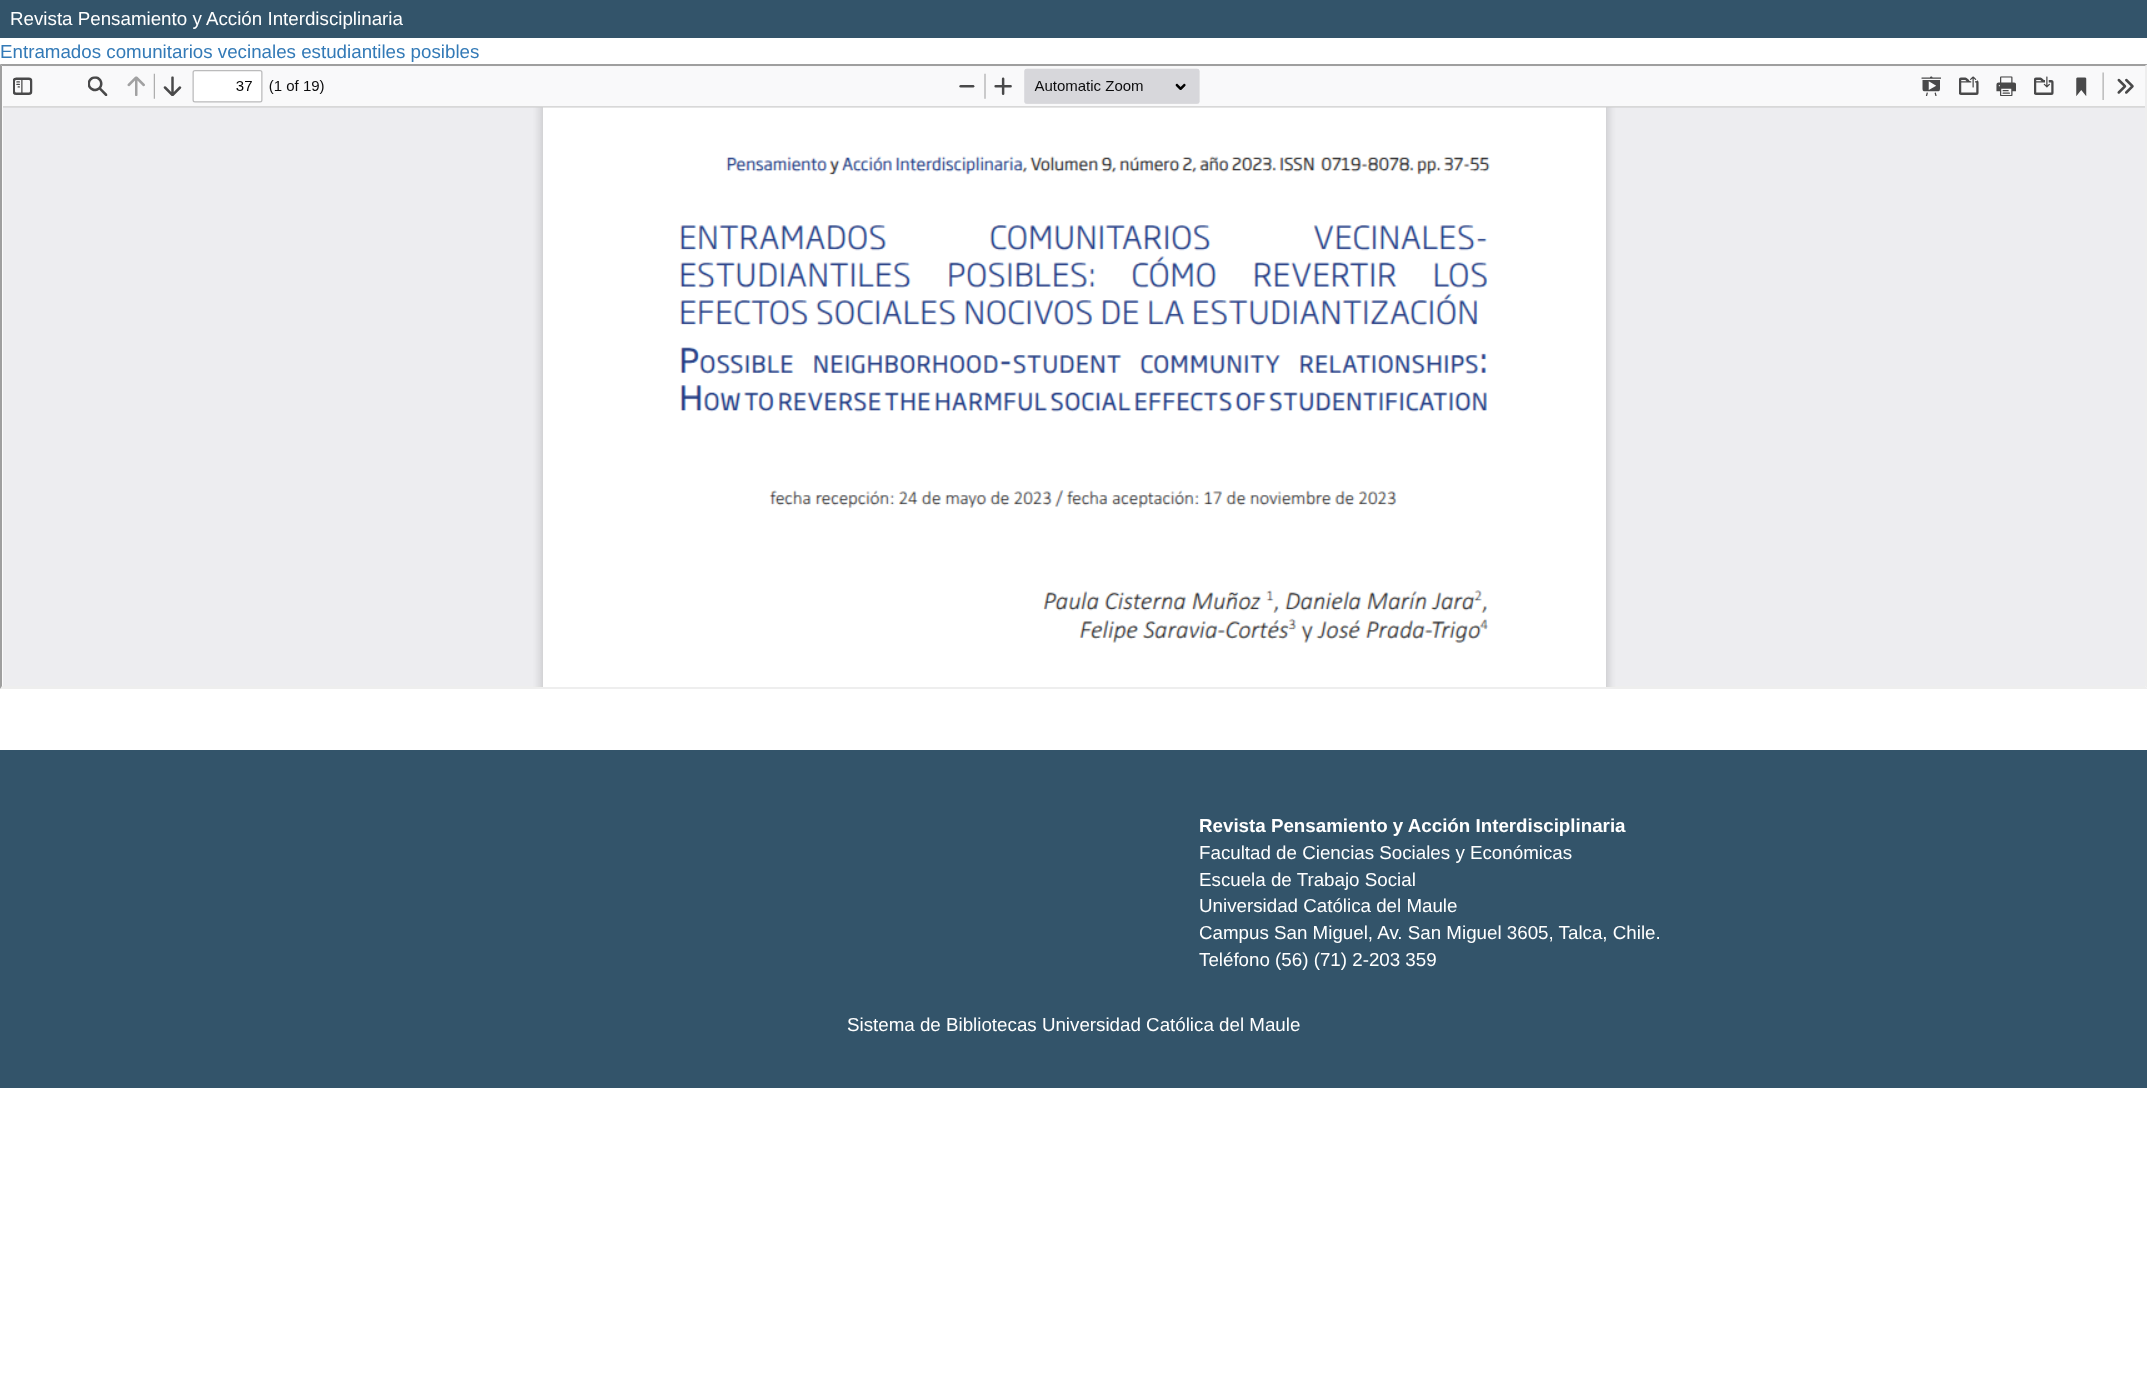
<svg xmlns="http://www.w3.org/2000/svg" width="2147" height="1399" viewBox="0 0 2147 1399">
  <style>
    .t1 { font: 18.75px Liberation Sans; fill: #fff; }
    .t2 { font: 18.75px Liberation Sans; fill: #337ab7; }
    .t3 { font: bold 18.75px Liberation Sans; fill: #fff; }
  </style>
  <rect width="100%" height="100%" fill="#fff"/>
  <rect x="0" y="0" width="2147" height="38" fill="#33546a"/>
  <text x="10" y="25" class="t1">Revista Pensamiento y Acción Interdisciplinaria</text>
  <text x="0" y="58" class="t2">Entramados comunitarios vecinales estudiantiles posibles</text>
  <path d="M0 64H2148L2145 66H2Z" fill="#9f9f9f"/>
  <path d="M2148 64V689L2145 686V66Z" fill="#eee"/>
  <path d="M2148 689H0L2 686H2145Z" fill="#eee"/>
  <path d="M0 689V64L2 66V686Z" fill="#9f9f9f"/>
  <image x="2" y="66" width="2143" height="621" href="images/1.png"/>
  <rect x="0" y="750" width="2147" height="338" fill="#33546a"/>
  <text x="1199" y="832" class="t3">Revista Pensamiento y Acción Interdisciplinaria</text>
  <text x="1199" y="859" class="t1">Facultad de Ciencias Sociales y Económicas</text>
  <text x="1199" y="886" class="t1">Escuela de Trabajo Social</text>
  <text x="1199" y="912" class="t1">Universidad Católica del Maule</text>
  <text x="1199" y="939" class="t1">Campus San Miguel, Av. San Miguel 3605, Talca, Chile.</text>
  <text x="1199" y="966" class="t1">Teléfono (56) (71) 2-203 359</text>
  <text x="847" y="1031" class="t1">Sistema de Bibliotecas Universidad Católica del Maule</text>
</svg>
